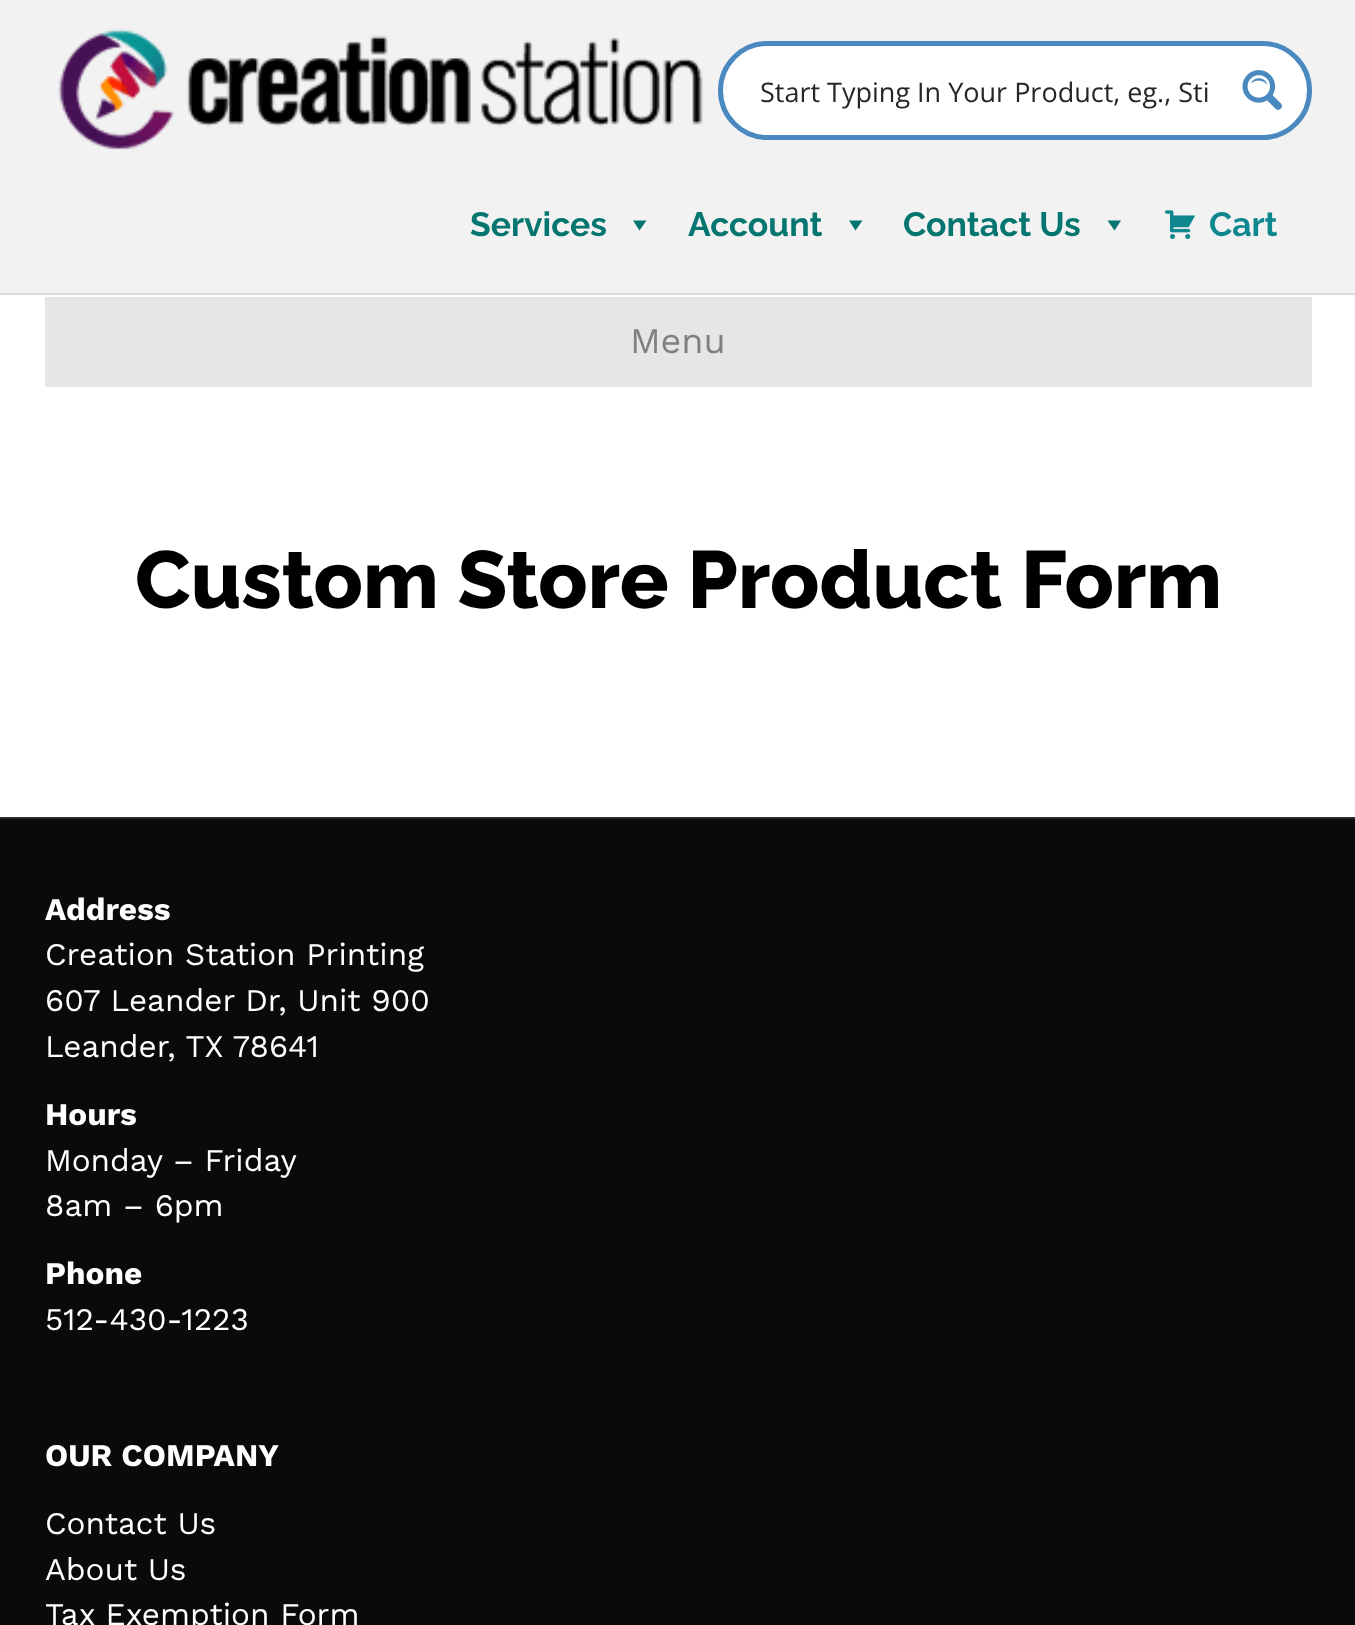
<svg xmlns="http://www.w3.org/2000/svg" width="1355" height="1625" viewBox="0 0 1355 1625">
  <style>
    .t1 { font: 27px Open Sans; fill: #262626; }
    .t2 { font: bold 33.75px Raleway; fill: #04756f; }
    .t3 { font: bold 33.75px Raleway; fill: #0f878e; }
    .t4 { font: 36px Work Sans; fill: #808080; }
    .t5 { font: 100 81px Raleway; fill: #000; }
    .t6 { font: bold 31.5px Work Sans; fill: #fff; }
    .t7 { font: 31.5px Work Sans; fill: #fff; }
  </style>
  <rect width="100%" height="100%" fill="#fff"/>
  <rect x="0" y="0" width="1355" height="293" fill="#f2f2f2"/>
  <rect x="0" y="293" width="1355" height="2" fill="#d9d9d9"/>
  <image x="58" y="28" width="645" height="122" href="images/1.png"/>
  <rect x="720.5" y="43.5" width="589" height="94" rx="47" fill="#fff" stroke="#4a89bf" stroke-width="5"/>
  <text x="760" y="102" class="t1">Start Typing In Your Product, eg., Sti</text>
  <image x="1242" y="70" width="40" height="40" href="images/2.png"/>
  <text x="470" y="236" class="t2">Services</text>
  <path d="M646.5 220.5L639.5 230.5L633 220.5Z" fill="#04756f"/>
  <text x="688" y="236" class="t2">Account</text>
  <path d="M862.5 220.5L855.5 230.5L849 220.5Z" fill="#04756f"/>
  <text x="903" y="236" class="t2">Contact Us</text>
  <path d="M1121 220.5L1114.5 230.5L1107.5 220.5Z" fill="#04756f"/>
  <image x="1165" y="210" width="31" height="29" href="images/3.png"/>
  <text x="1209" y="236" class="t3">Cart</text>
  <rect x="45" y="297" width="1267" height="90" fill="#e6e6e6"/>
  <text x="630" y="353" class="t4">Menu</text>
  <text x="135" y="608" class="t5">Custom Store Product Form</text>
  <rect x="0" y="819" width="1355" height="806" fill="#0a0a0a"/>
  <rect x="0" y="817" width="1355" height="2" fill="#2b2b2b"/>
  <text x="45" y="920" class="t6">Address</text>
  <text x="45" y="965" class="t7">Creation Station Printing</text>
  <text x="45" y="1011" class="t7">607 Leander Dr, Unit 900</text>
  <text x="45" y="1057" class="t7">Leander, TX 78641</text>
  <text x="45" y="1125" class="t6">Hours</text>
  <text x="45" y="1171" class="t7">Monday – Friday</text>
  <text x="45" y="1216" class="t7">8am – 6pm</text>
  <text x="45" y="1284" class="t6">Phone</text>
  <text x="45" y="1330" class="t7">512-430-1223</text>
  <text x="45" y="1466" class="t6">OUR COMPANY</text>
  <text x="45" y="1534" class="t7">Contact Us</text>
  <text x="45" y="1580" class="t7">About Us</text>
  <text x="45" y="1625" class="t7">Tax Exemption Form</text>
</svg>
